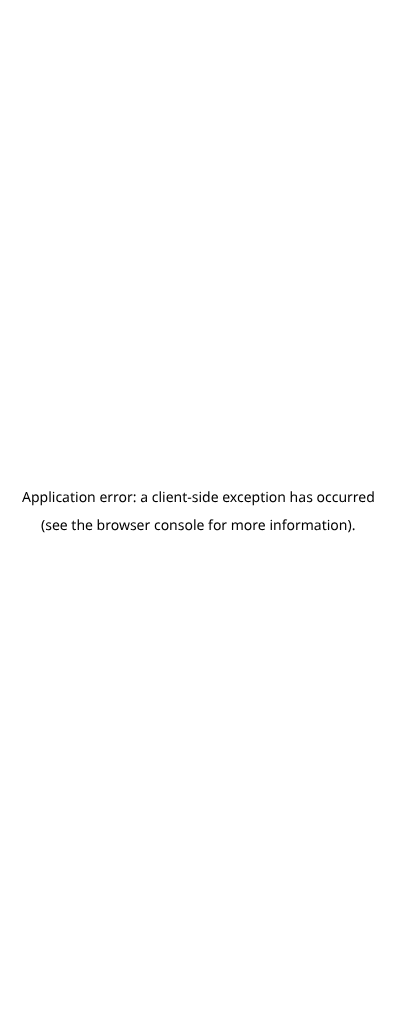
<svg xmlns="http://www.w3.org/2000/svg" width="397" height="1021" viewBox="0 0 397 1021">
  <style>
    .t1 { font: 14px Noto Sans; fill: #000; }
  </style>
  <rect width="100%" height="100%" fill="#fff"/>
  <text x="22" y="502" class="t1">Application error: a client-side exception has occurred</text>
  <text x="41" y="530" class="t1">(see the browser console for more information).</text>
</svg>
